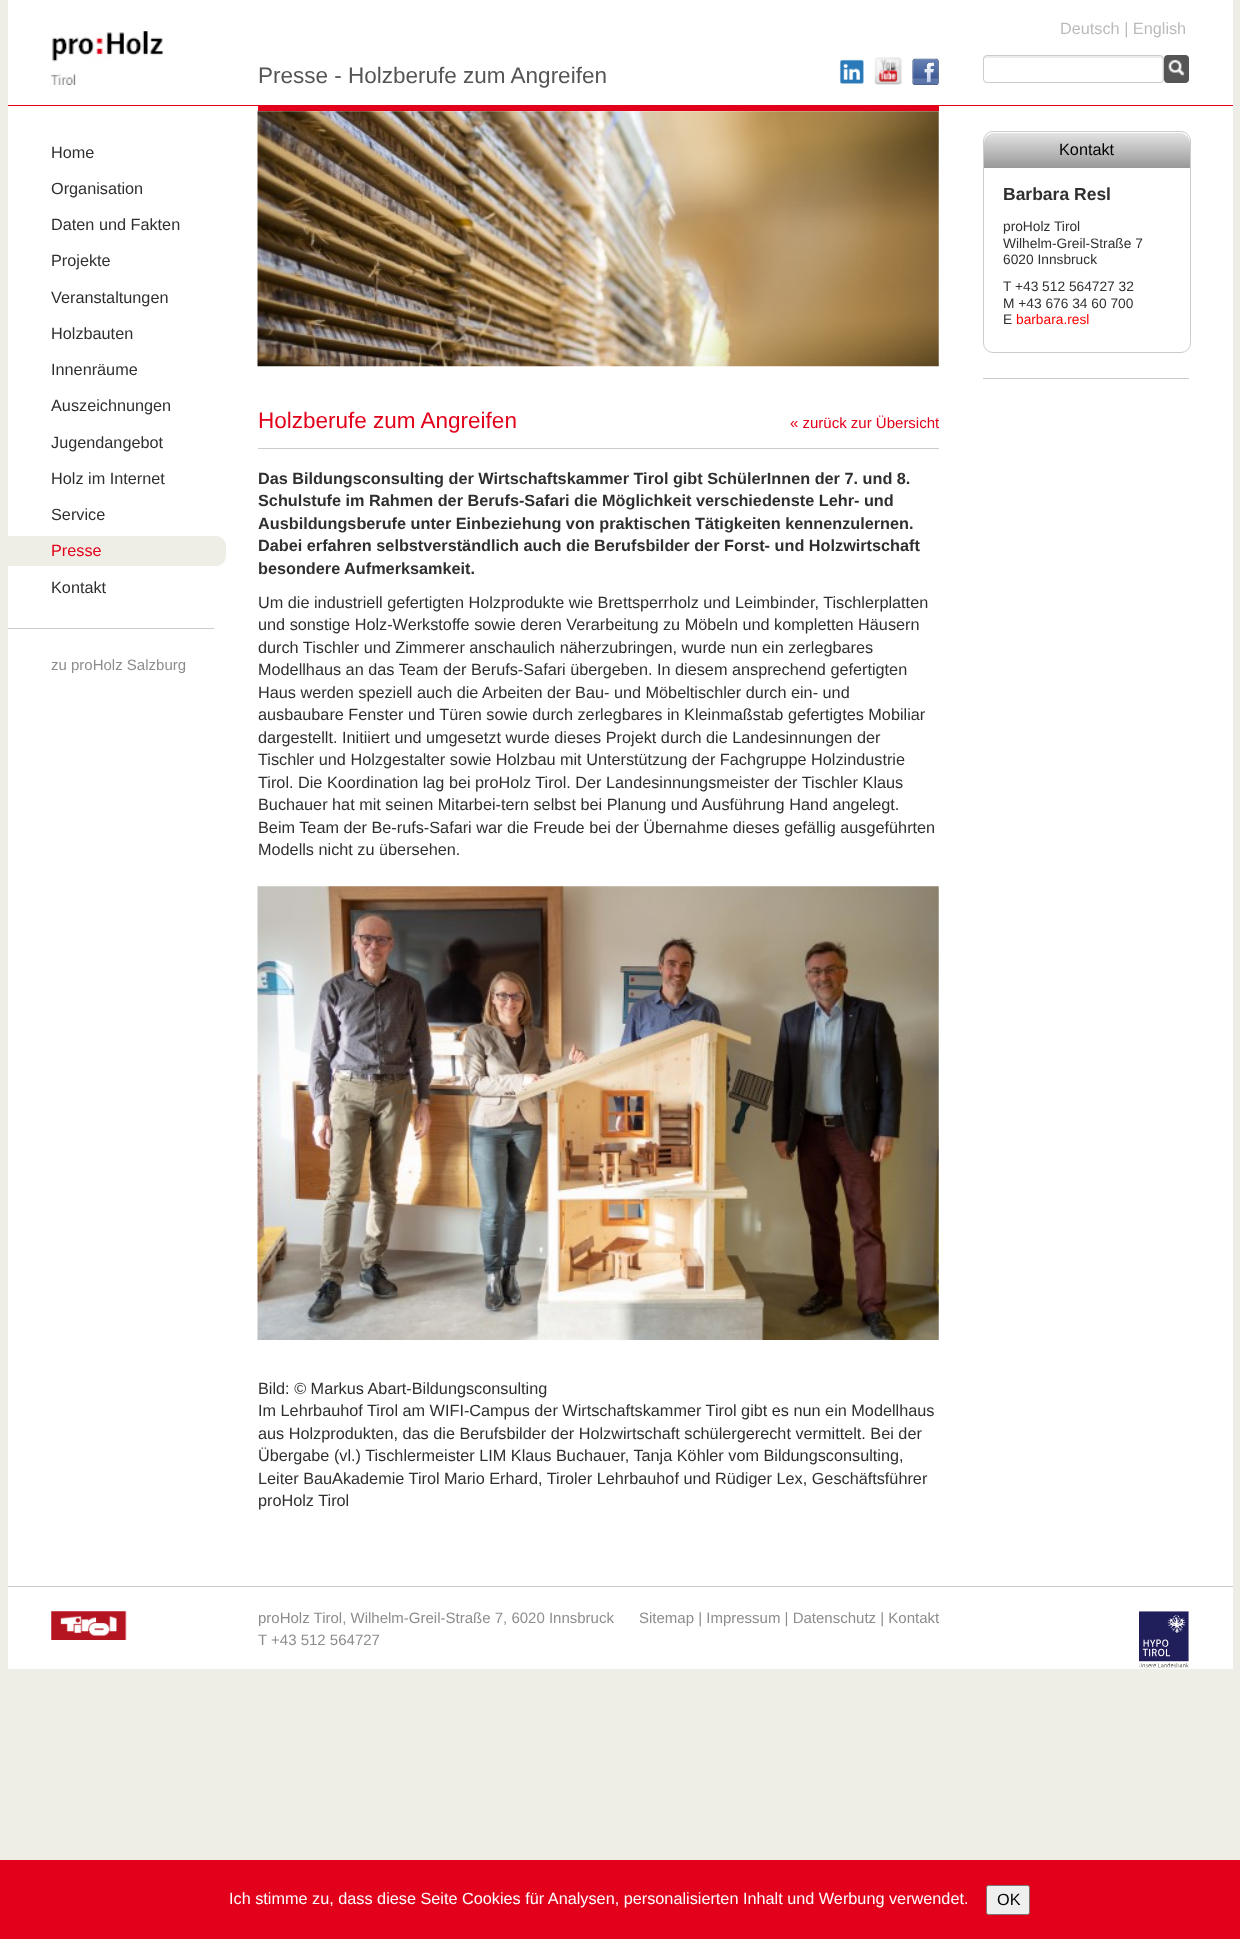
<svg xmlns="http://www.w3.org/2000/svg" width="1240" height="1939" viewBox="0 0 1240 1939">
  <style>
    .t1 { font: 16.25px Liberation Sans; fill: #bbb; }
    .t2 { font: 22.5px Liberation Sans; fill: #555; }
    .t3 { font: 16.25px Liberation Sans; fill: #2f2f2f; }
    .t4 { font: 16.25px Liberation Sans; fill: #e2001a; }
    .t5 { font: 15px Liberation Sans; fill: #8d8d8d; }
    .t6 { font: 22.5px Liberation Sans; fill: #e2001a; }
    .t7 { font: 15px Liberation Sans; fill: #e2001a; }
    .t8 { font: bold 16.25px Liberation Sans; fill: #2f2f2f; }
    .t9 { font: 16.25px Liberation Sans; fill: #000; }
    .t10 { font: bold 17.5px Liberation Sans; fill: #2f2f2f; }
    .t11 { font: 13.75px Liberation Sans; fill: #2f2f2f; }
    .t12 { font: 13.75px Liberation Sans; fill: #f00; }
    .t13 { font: 16.25px Liberation Sans; fill: #fff; }
  </style>
  <defs>
    <linearGradient id="g1" gradientUnits="userSpaceOnUse" x1="1087" y1="132" x2="1087" y2="168"><stop offset="0" stop-color="#e5e5e5"/><stop offset="1" stop-color="#999"/></linearGradient>
  </defs>
  <rect width="100%" height="100%" fill="#eeeee6"/>
  <rect x="8" y="0" width="1225" height="1669" fill="#fff"/>
  <rect x="8" y="105" width="1225" height="1" fill="#e2001a"/>
  <image x="51" y="31" width="112" height="54" href="images/1.png"/>
  <text x="1060" y="34" class="t1">Deutsch | English</text>
  <text x="258" y="83" class="t2">Presse - Holzberufe zum Angreifen</text>
  <image x="839" y="59" width="25" height="25" href="images/2.png"/>
  <image x="874" y="57" width="28" height="28" href="images/3.png"/>
  <image x="912" y="58" width="27" height="27" href="images/4.png"/>
  <path d="M986 58H1160C1163 58 1162 65 1162 67V81C1163 80 1163 79 1163 78V58C1163 57 1162 56 1160 56H986C985 56 984 57 984 58V60C984 59 985 58 986 58Z" fill="#ececec"/>
  <rect x="983.5" y="55.5" width="180" height="27" rx="3.5" fill="none" stroke="#ccc"/>
  <rect x="1164" y="55" width="25" height="28" rx="4" fill="#555"/>
  <image x="1168" y="59" width="17" height="17" href="images/5.png"/>
  <text x="51" y="158" class="t3">Home</text>
  <text x="51" y="194" class="t3">Organisation</text>
  <text x="51" y="230" class="t3">Daten und Fakten</text>
  <text x="51" y="266" class="t3">Projekte</text>
  <text x="51" y="303" class="t3">Veranstaltungen</text>
  <text x="51" y="339" class="t3">Holzbauten</text>
  <text x="51" y="375" class="t3">Innenräume</text>
  <text x="51" y="411" class="t3">Auszeichnungen</text>
  <text x="51" y="448" class="t3">Jugendangebot</text>
  <text x="51" y="484" class="t3">Holz im Internet</text>
  <text x="51" y="520" class="t3">Service</text>
  <path d="M8 536H216C221.5 536 226 540.5 226 546V556C226 561.5 221.5 566 216 566H8Z" fill="#eeeee6"/>
  <text x="51" y="556" class="t4">Presse</text>
  <text x="51" y="593" class="t3">Kontakt</text>
  <rect x="8" y="628" width="206" height="1" fill="#ccc"/>
  <text x="51" y="670" class="t5">zu proHolz Salzburg</text>
  <rect x="258" y="106" width="681" height="5" fill="#e2001a"/>
  <image x="257" y="111" width="682" height="256" href="images/6.png"/>
  <rect x="258" y="448" width="681" height="1" fill="#ccc"/>
  <text x="258" y="428" class="t6">Holzberufe zum Angreifen</text>
  <text x="790" y="428" class="t7">« zurück zur Übersicht</text>
  <text x="258" y="484" class="t8">Das Bildungsconsulting der Wirtschaftskammer Tirol gibt SchülerInnen der 7. und 8.</text>
  <text x="258" y="506" class="t8">Schulstufe im Rahmen der Berufs-Safari die Möglichkeit verschiedenste Lehr- und</text>
  <text x="258" y="529" class="t8">Ausbildungsberufe unter Einbeziehung von praktischen Tätigkeiten kennenzulernen.</text>
  <text x="258" y="551" class="t8">Dabei erfahren selbstverständlich auch die Berufsbilder der Forst- und Holzwirtschaft</text>
  <text x="258" y="574" class="t8">besondere Aufmerksamkeit.</text>
  <text x="258" y="608" class="t3">Um die industriell gefertigten Holzprodukte wie Brettsperrholz und Leimbinder, Tischlerplatten</text>
  <text x="258" y="630" class="t3">und sonstige Holz-Werkstoffe sowie deren Verarbeitung zu Möbeln und kompletten Häusern</text>
  <text x="258" y="653" class="t3">durch Tischler und Zimmerer anschaulich näherzubringen, wurde nun ein zerlegbares</text>
  <text x="258" y="675" class="t3">Modellhaus an das Team der Berufs-Safari übergeben. In diesem ansprechend gefertigten</text>
  <text x="258" y="698" class="t3">Haus werden speziell auch die Arbeiten der Bau- und Möbeltischler durch ein- und</text>
  <text x="258" y="720" class="t3">ausbaubare Fenster und Türen sowie durch zerlegbares in Kleinmaßstab gefertigtes Mobiliar</text>
  <text x="258" y="743" class="t3">dargestellt. Initiiert und umgesetzt wurde dieses Projekt durch die Landesinnungen der</text>
  <text x="258" y="765" class="t3">Tischler und Holzgestalter sowie Holzbau mit Unterstützung der Fachgruppe Holzindustrie</text>
  <text x="258" y="788" class="t3">Tirol. Die Koordination lag bei proHolz Tirol. Der Landesinnungsmeister der Tischler Klaus</text>
  <text x="258" y="810" class="t3">Buchauer hat mit seinen Mitarbei-tern selbst bei Planung und Ausführung Hand angelegt.</text>
  <text x="258" y="833" class="t3">Beim Team der Be-rufs-Safari war die Freude bei der Übernahme dieses gefällig ausgeführten</text>
  <text x="258" y="855" class="t3">Modells nicht zu übersehen.</text>
  <image x="257" y="886" width="682" height="454" href="images/7.png"/>
  <text x="258" y="1394" class="t3">Bild: © Markus Abart-Bildungsconsulting</text>
  <text x="258" y="1416" class="t3">Im Lehrbauhof Tirol am WIFI-Campus der Wirtschaftskammer Tirol gibt es nun ein Modellhaus</text>
  <text x="258" y="1439" class="t3">aus Holzprodukten, das die Berufsbilder der Holzwirtschaft schülergerecht vermittelt. Bei der</text>
  <text x="258" y="1461" class="t3">Übergabe (vl.) Tischlermeister LIM Klaus Buchauer, Tanja Köhler vom Bildungsconsulting,</text>
  <text x="258" y="1484" class="t3">Leiter BauAkademie Tirol Mario Erhard, Tiroler Lehrbauhof und Rüdiger Lex, Geschäftsführer</text>
  <text x="258" y="1506" class="t3">proHolz Tirol</text>
  <rect x="983.5" y="131.5" width="207" height="221" rx="9.5" fill="none" stroke="#ccc"/>
  <path d="M994 133H1180C1185.5 133 1190 137.5 1190 143V168H984V143C984 137.5 988.5 133 994 133Z" fill="url(#g1)"/>
  <text x="1059" y="155" class="t9">Kontakt</text>
  <text x="1003" y="200" class="t10">Barbara Resl</text>
  <text x="1003" y="231" class="t11">proHolz Tirol</text>
  <text x="1003" y="248" class="t11">Wilhelm-Greil-Straße 7</text>
  <text x="1003" y="264" class="t11">6020 Innsbruck</text>
  <text x="1003" y="291" class="t11">T +43 512 564727 32</text>
  <text x="1003" y="308" class="t11">M +43 676 34 60 700</text>
  <text x="1003" y="324" class="t11">E</text>
  <text x="1016" y="324" class="t12">barbara.resl</text>
  <rect x="983" y="378" width="206" height="1" fill="#ccc"/>
  <rect x="8" y="1586" width="1225" height="1" fill="#ccc"/>
  <image x="51" y="1611" width="76" height="29" href="images/8.png"/>
  <text x="258" y="1623" class="t5">proHolz Tirol, Wilhelm-Greil-Straße 7, 6020 Innsbruck</text>
  <text x="258" y="1645" class="t5">T +43 512 564727</text>
  <text x="639" y="1623" class="t5">Sitemap | Impressum | Datenschutz | Kontakt</text>
  <image x="1139" y="1611" width="50" height="57" href="images/9.png"/>
  <rect x="0" y="1860" width="1240" height="79" fill="#e2001a"/>
  <text x="229" y="1904" class="t13">Ich stimme zu, dass diese Seite Cookies für Analysen, personalisierten Inhalt und Werbung verwendet.</text>
  <rect x="986.5" y="1885.5" width="43" height="29" rx="2" fill="#efefef" stroke="#767676"/>
  <text x="997" y="1905" class="t9">OK</text>
</svg>
